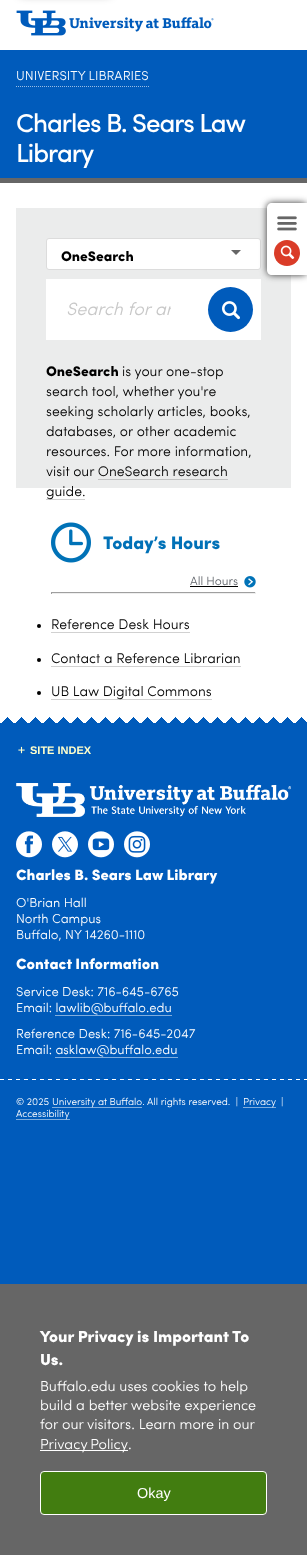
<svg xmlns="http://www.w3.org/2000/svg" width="307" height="1555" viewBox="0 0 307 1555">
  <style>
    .t1 { font: 13px 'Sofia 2'; fill: #fff; }
    .t2 { font: 500 26px Sofia; letter-spacing: -1px; fill: #fff; }
    .t3 { font: 14px Sofia; fill: #000; }
    .t4 { font: italic 18px Sofia; fill: #c8c8c8; }
    .t5 { font: 14px 'Sofia 2'; fill: #000; }
    .t6 { font: 18px Sofia; fill: #0071b7; }
    .t7 { font: 12px 'Sofia 2'; fill: #5f6369; }
    .t8 { font: bold 11px Liberation Sans; fill: #ffc; }
    .t9 { font: 15px Sofia; fill: #fff; }
    .t10 { font: 10px 'Sofia 2'; fill: #fff; }
    .t11 { font: 16px Sofia; fill: #fff; }
    .t12 { font: 14.4px 'Sofia 2'; fill: #fff; }
    .t13 { font: 14.4px Liberation Sans; fill: #fff; }
  </style>
  <defs>
    <clipPath id="clip1"><rect x="66" y="299" width="105" height="22"/></clipPath>
  </defs>
  <rect width="100%" height="100%" fill="#005bbb"/>
  <rect x="0" y="0" width="307" height="50" fill="#fff"/>
  <rect x="20" y="-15" width="90" height="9" fill="#00000080" filter="blur(5px)"/>
  <rect x="0" y="183" width="307" height="534" fill="#fff"/>
  <image x="16" y="10" width="198" height="26" href="images/1.png"/>
  <path d="M16 86.5H149" fill="none" stroke="#99bde4" stroke-dasharray="1 1"/>
  <text x="16" y="80" class="t1">UNIVERSITY LIBRARIES</text>
  <text x="16" y="132" class="t2">Charles B. Sears Law</text>
  <text x="16" y="162" class="t2">Library</text>
  <rect x="0" y="178" width="307" height="5" fill="#666"/>
  <rect x="16" y="208" width="275" height="280" fill="#ebecec"/>
  <rect x="46.5" y="238.5" width="214" height="31" rx="2.5" fill="#fff" stroke="#dcdcdc"/>
  <rect x="46" y="279" width="215" height="61" fill="#fff"/>
  <rect x="267" y="203" width="40" height="72" rx="5" fill="#333" filter="blur(3.5px)"/>
  <path d="M272 203H307V275H272C269 275 267 273 267 270V208C267 205 269 203 272 203Z" fill="#fff"/>
  <image x="277" y="216" width="20" height="15" href="images/2.png"/>
  <circle cx="287" cy="253" r="13" fill="#da3c28"/>
  <image x="280" y="245" width="15" height="14" href="images/3.png"/>
  <text x="61" y="261" class="t3">OneSearch</text>
  <path d="M231 250H241L236 255Z" fill="#666"/>
  <g clip-path="url(#clip1)">
    <text x="66" y="315" class="t4">Search for ar</text>
  </g>
  <circle cx="230.5" cy="309.5" r="22.5" fill="#005bbb"/>
  <image x="222" y="301" width="18" height="19" href="images/4.png"/>
  <text x="46" y="376" class="t3">OneSearch</text>
  <text x="122" y="376" class="t5">is your one-stop</text>
  <text x="46" y="396" class="t5">search tool, whether you're</text>
  <text x="46" y="416" class="t5">seeking scholarly articles, books,</text>
  <text x="46" y="436" class="t5">databases, or other academic</text>
  <text x="46" y="456" class="t5">resources. For more information,</text>
  <text x="46" y="476" class="t5">visit our OneSearch research</text>
  <rect x="46" y="499" width="39" height="1" fill="#d1d1d1"/>
  <text x="46" y="496" class="t5">guide.</text>
  <rect x="98" y="479" width="130" height="1" fill="#c1c2c2"/>
  <image x="51" y="522" width="40" height="41" href="images/5.png"/>
  <text x="103" y="549" class="t6">Today’s Hours</text>
  <text x="190" y="585" class="t7">All Hours</text>
  <rect x="190" y="586" width="48" height="1" fill="#000"/>
  <image x="244" y="576" width="12" height="12" href="images/6.png"/>
  <rect x="51" y="592" width="205" height="1" fill="#9f9f9f"/>
  <rect x="255" y="592" width="1" height="2" fill="#eee"/>
  <rect x="51" y="593" width="205" height="1" fill="#eee"/>
  <rect x="51" y="592" width="1" height="2" fill="#9f9f9f"/>
  <circle cx="39" cy="626" r="2" fill="#000"/>
  <text x="51" y="629" class="t5">Reference Desk Hours</text>
  <rect x="51" y="632" width="139" height="1" fill="#d1d1d1"/>
  <circle cx="39" cy="660" r="2" fill="#000"/>
  <text x="51" y="663" class="t5">Contact a Reference Librarian</text>
  <rect x="51" y="666" width="190" height="1" fill="#d1d1d1"/>
  <circle cx="39" cy="693" r="2" fill="#000"/>
  <rect x="51" y="699" width="161" height="1" fill="#d1d1d1"/>
  <text x="51" y="696" class="t5">UB Law Digital Commons</text>
  <image x="0" y="717" width="301" height="6" href="images/7.png"/>
  <image x="8" y="717" width="299" height="6" href="images/8.png"/>
  <image x="18" y="746" width="7" height="8" href="images/9.png"/>
  <text x="30" y="754" class="t8">SITE INDEX</text>
  <image x="16" y="783" width="275" height="34" href="images/10.png"/>
  <image x="0" y="1079" width="307" height="1" href="images/11.png"/>
  <image x="16" y="831" width="26" height="27" href="images/12.png"/>
  <image x="52" y="831" width="26" height="27" href="images/13.png"/>
  <image x="88" y="831" width="26" height="27" href="images/14.png"/>
  <image x="124" y="831" width="26" height="27" href="images/15.png"/>
  <text x="16" y="880" class="t9">Charles B. Sears Law Library</text>
  <text x="16" y="907" class="t1">O'Brian Hall</text>
  <text x="16" y="923" class="t1">North Campus</text>
  <text x="16" y="939" class="t1">Buffalo, NY 14260-1110</text>
  <text x="16" y="969" class="t9">Contact Information</text>
  <text x="16" y="996" class="t1">Service Desk: 716-645-6765</text>
  <text x="16" y="1012" class="t1">Email: lawlib@buffalo.edu</text>
  <rect x="55" y="1015" width="117" height="1" fill="#80addd"/>
  <text x="16" y="1038" class="t1">Reference Desk: 716-645-2047</text>
  <text x="16" y="1054" class="t1">Email: asklaw@buffalo.edu</text>
  <rect x="55" y="1057" width="123" height="1" fill="#80addd"/>
  <text x="16" y="1105" class="t10">© 2025</text>
  <rect x="52" y="1107" width="90" height="1" fill="#80addd"/>
  <text x="52" y="1105" class="t10" xml:space="preserve">University at Buffalo. All rights reserved.  |</text>
  <rect x="243" y="1107" width="33" height="1" fill="#80addd"/>
  <text x="243" y="1105" class="t10">Privacy</text>
  <text x="281" y="1105" class="t10">|</text>
  <rect x="16" y="1119" width="54" height="1" fill="#80addd"/>
  <text x="16" y="1117" class="t10">Accessibility</text>
  <rect x="0" y="1284" width="307" height="271" fill="#666"/>
  <text x="40" y="1342" class="t11">Your Privacy is Important To</text>
  <text x="40" y="1365" class="t11">Us.</text>
  <text x="40" y="1391" class="t12">Buffalo.edu uses cookies to help</text>
  <text x="40" y="1410" class="t12">build a better website experience</text>
  <text x="40" y="1429" class="t12">for our visitors. Learn more in our</text>
  <rect x="40" y="1450" width="88" height="1" fill="#fff"/>
  <text x="40" y="1449" word-spacing="-1" class="t12">Privacy Policy</text>
  <text x="128" y="1449" class="t12">.</text>
  <rect x="40.5" y="1471.5" width="226" height="43" rx="3.5" fill="#427d10" stroke="#fff"/>
  <text x="137" y="1498" class="t13">Okay</text>
</svg>
